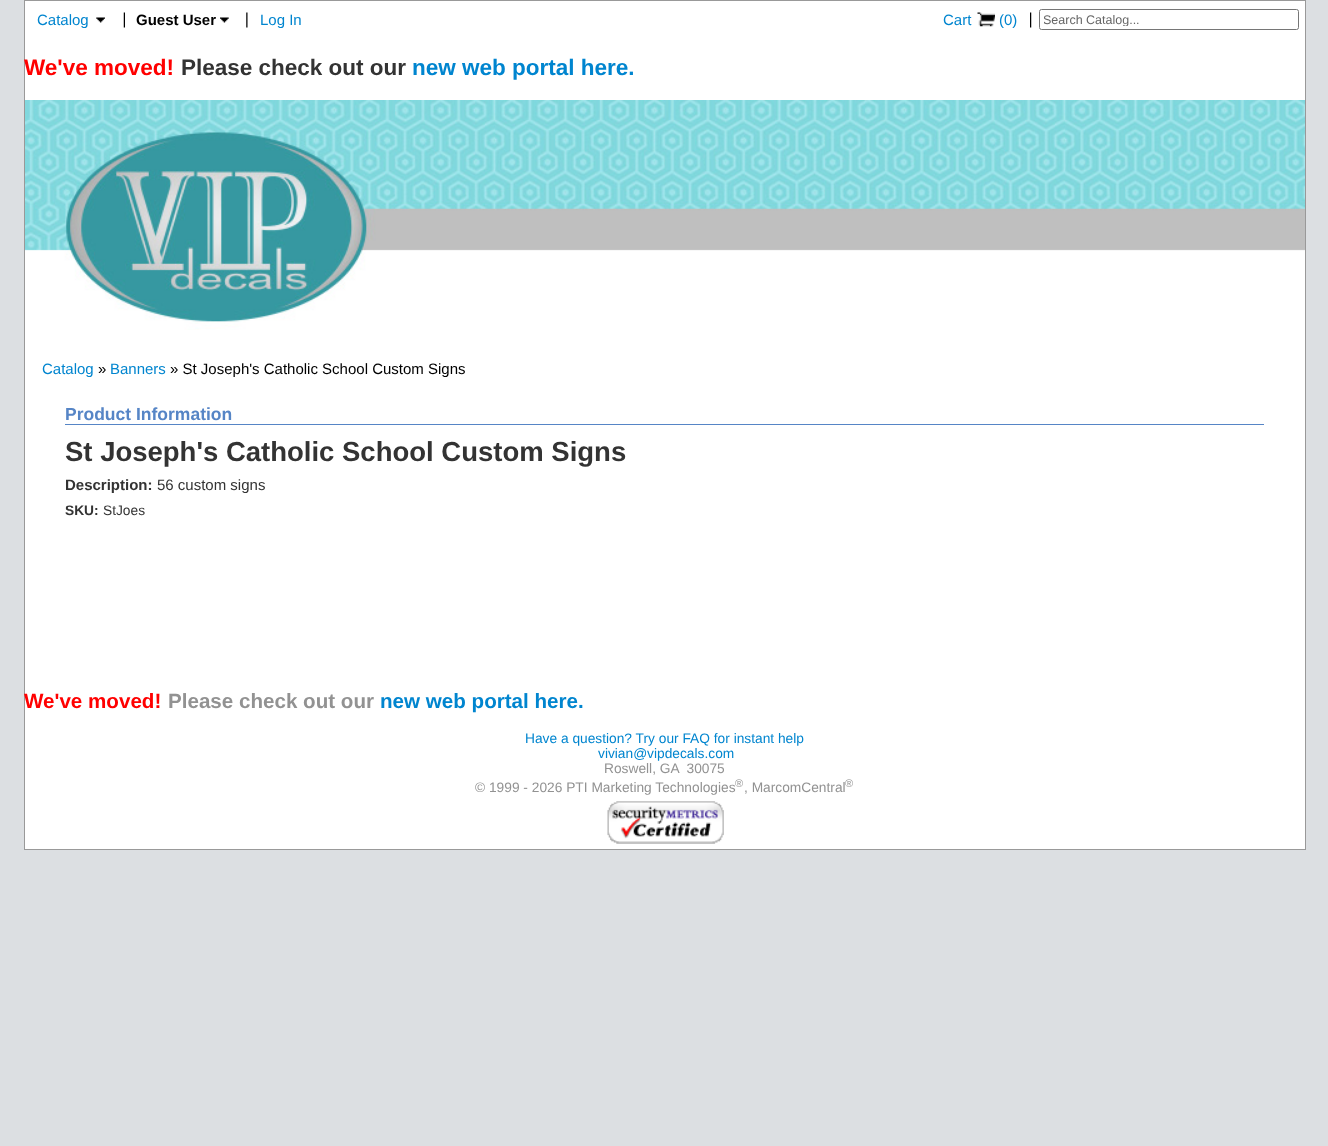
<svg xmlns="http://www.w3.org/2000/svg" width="1328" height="1146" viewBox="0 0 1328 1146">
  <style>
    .t1 { font: 15px Liberation Sans; fill: #0085cf; }
    .t2 { font: bold 15px Liberation Sans; fill: #000; }
    .t3 { font: 12.5px Liberation Sans; fill: #666; }
    .t4 { font: bold 22.5px Liberation Sans; fill: #f00; }
    .t5 { font: bold 22.5px Liberation Sans; fill: #333; }
    .t6 { font: bold 22.5px Liberation Sans; fill: #0085cf; }
    .t7 { font: 15px Liberation Sans; fill: #000; }
    .t8 { font: bold 17.5px Liberation Sans; fill: #5685c6; }
    .t9 { font: bold 27.5px Liberation Sans; fill: #333; }
    .t10 { font: bold 15px Liberation Sans; fill: #333; }
    .t11 { font: 15px Liberation Sans; fill: #333; }
    .t12 { font: bold 13.75px Liberation Sans; fill: #333; }
    .t13 { font: 13.75px Liberation Sans; fill: #333; }
    .t14 { font: bold 20.6px Liberation Sans; fill: #f00; }
    .t15 { font: bold 20.6px Liberation Sans; fill: #929292; }
    .t16 { font: bold 20.6px Liberation Sans; fill: #0085cf; }
    .t17 { font: 13.75px Liberation Sans; fill: #0085cf; }
    .t18 { font: 13.75px Liberation Sans; fill: #929292; }
    .t19 { font: 11px Liberation Sans; fill: #929292; }
  </style>
  <defs>
    <clipPath id="clip1"><rect x="1044" y="13" width="250" height="13"/></clipPath>
  </defs>
  <rect width="100%" height="100%" fill="#dcdfe2"/>
  <rect x="25" y="1" width="1280" height="848" fill="#fff"/>
  <rect x="24" y="0" width="1282" height="1" fill="#999"/>
  <rect x="1305" y="0" width="1" height="850" fill="#999"/>
  <rect x="24" y="849" width="1282" height="1" fill="#999"/>
  <rect x="24" y="0" width="1" height="850" fill="#999"/>
  <text x="37" y="25" class="t1">Catalog</text>
  <image x="96" y="17" width="9" height="6" href="images/1.png"/>
  <image x="123" y="12" width="2" height="16" href="images/2.png"/>
  <text x="136" y="25" class="t2">Guest User</text>
  <image x="220" y="17" width="9" height="6" href="images/3.png"/>
  <image x="246" y="12" width="2" height="16" href="images/4.png"/>
  <text x="260" y="25" class="t1">Log In</text>
  <text x="943" y="25" class="t1">Cart</text>
  <image x="977" y="12" width="18" height="15" href="images/5.png"/>
  <text x="999" y="25" class="t1">(0)</text>
  <image x="1030" y="12" width="2" height="16" href="images/6.png"/>
  <rect x="1039.5" y="9.5" width="259" height="20" rx="2" fill="none" stroke="#767676"/>
  <g clip-path="url(#clip1)">
    <text x="1043" y="24" class="t3">Search Catalog...</text>
  </g>
  <text x="24" y="75" class="t4">We've moved!</text>
  <text x="181" y="75" class="t5">Please check out our</text>
  <text x="412" y="75" class="t6">new web portal here.</text>
  <image x="25" y="100" width="1280" height="230" href="images/7.png"/>
  <text x="42" y="374" class="t1">Catalog</text>
  <text x="98" y="374" class="t7">»</text>
  <text x="110" y="374" class="t1">Banners</text>
  <text x="170" y="374" class="t7">» St Joseph's Catholic School Custom Signs</text>
  <rect x="65" y="424" width="1199" height="1" fill="#5685c6"/>
  <text x="65" y="420" class="t8">Product Information</text>
  <text x="65" y="461" class="t9">St Joseph's Catholic School Custom Signs</text>
  <text x="65" y="490" class="t10">Description:</text>
  <text x="157" y="490" class="t11">56 custom signs</text>
  <text x="65" y="515" class="t12">SKU:</text>
  <text x="103" y="515" class="t13">StJoes</text>
  <text x="24" y="708" class="t14">We've moved!</text>
  <text x="168" y="708" class="t15">Please check out our</text>
  <text x="380" y="708" class="t16">new web portal here.</text>
  <text x="525" y="743" class="t17">Have a question? Try our FAQ for instant help</text>
  <text x="598" y="758" class="t17">vivian@vipdecals.com</text>
  <text x="604" y="773" class="t18" xml:space="preserve">Roswell, GA  30075</text>
  <text x="475" y="792" class="t18">© 1999 - 2026 PTI Marketing Technologies</text>
  <text x="735" y="787" class="t19">®</text>
  <text x="744" y="792" class="t18">, MarcomCentral</text>
  <text x="845" y="787" class="t19">®</text>
  <image x="607" y="801" width="117" height="43" href="images/8.png"/>
</svg>
